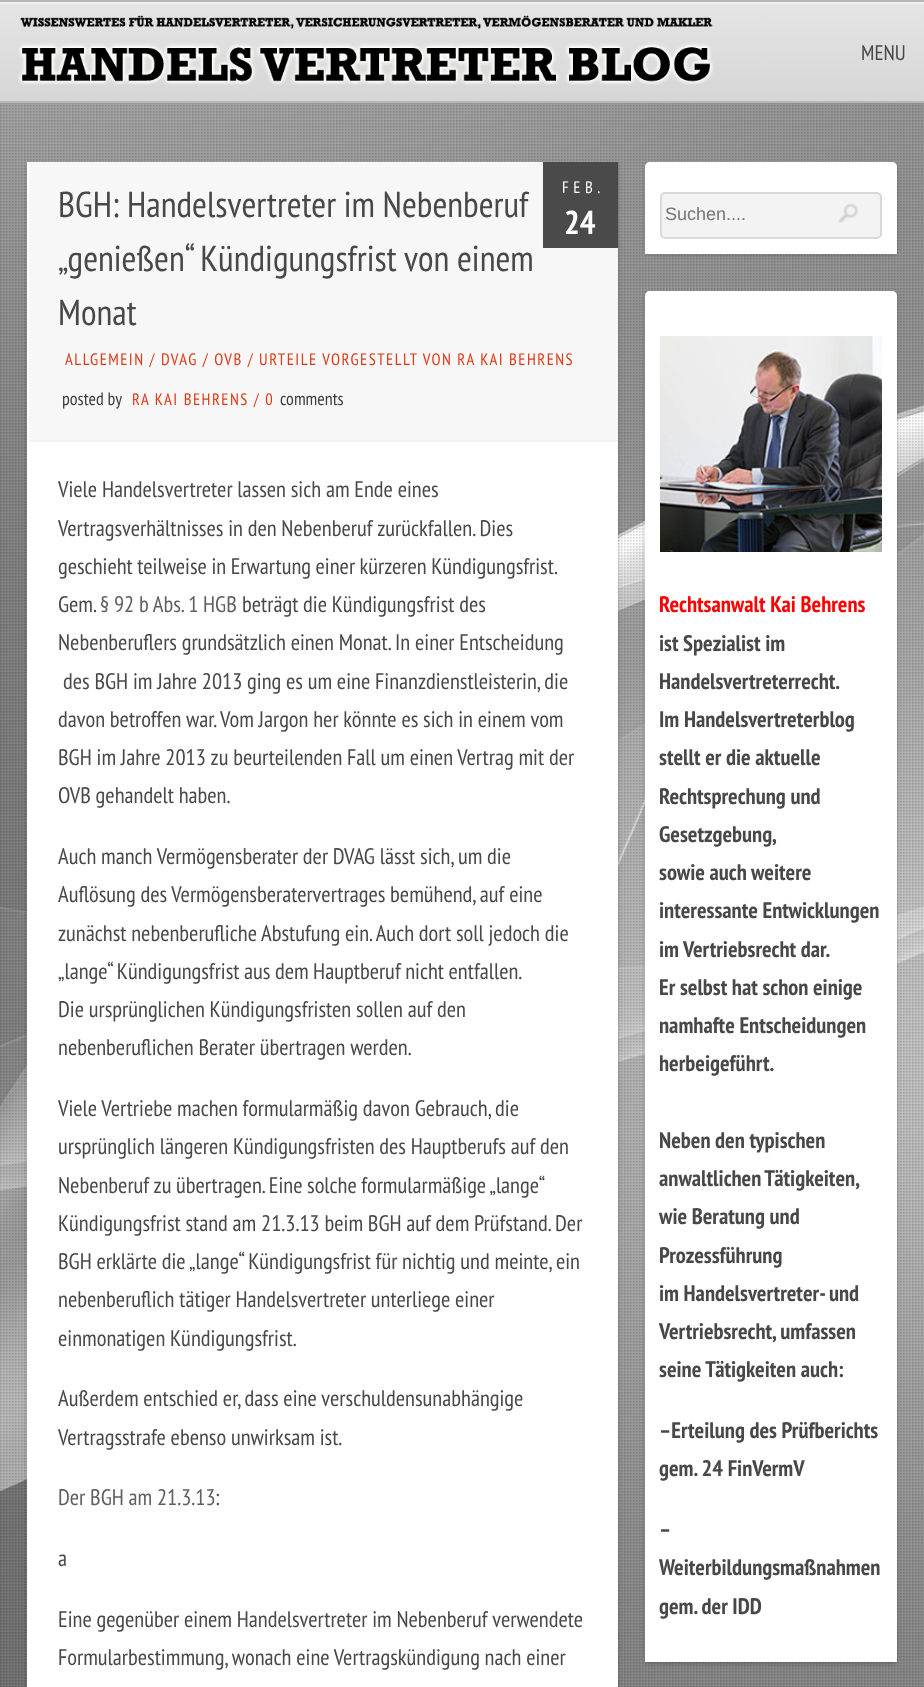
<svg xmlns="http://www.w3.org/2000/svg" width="924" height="1687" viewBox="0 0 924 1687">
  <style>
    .t1 { font: 21px PT Sans Narrow; fill: #484848; }
    .t2 { font: 36px PT Sans Narrow; fill: #484848; }
    .t3 { font: 16.5px PT Sans Narrow; letter-spacing: 1.5px; fill: #de3917; }
    .t4 { font: 18px PT Sans Narrow; fill: #3d3b3d; }
    .t5 { font: 16.5px PT Sans Narrow; letter-spacing: 4.5px; fill: #fff; }
    .t6 { font: bold 33px PT Sans Narrow; fill: #fff; }
    .t7 { font: 22.5px PT Sans Narrow; fill: #484848; }
    .t8 { font: 22.5px PT Sans Narrow; fill: #5f5f5f; }
    .t9 { font: 18px Liberation Sans; fill: #757575; }
    .t10 { font: bold 22.5px PT Sans Narrow; fill: #f00; }
    .t11 { font: bold 22.5px PT Sans Narrow; fill: #484848; }
  </style>
  <defs>
    <linearGradient id="g1" gradientUnits="userSpaceOnUse" x1="462" y1="1.5" x2="462" y2="101"><stop offset="0" stop-color="#e5e5e5"/><stop offset="1" stop-color="#d6d6d6"/></linearGradient>
  </defs>
  <rect width="100%" height="100%" fill="#fff"/>
  <rect x="0" y="4" width="924" height="97" fill="url(#g1)"/>
  <rect x="0" y="2" width="924" height="2" fill="#efefef"/>
  <rect x="0" y="0" width="924" height="2" fill="#b7b7b7"/>
  <rect x="0" y="101" width="924" height="2" fill="#b7b7b7"/>
  <image x="18" y="15" width="696" height="70" href="images/1.png"/>
  <text x="861" y="60" class="t1">MENU</text>
  <image x="0" y="103" width="924" height="1584" href="images/4.png"/>
  <image x="0" y="103" width="924" height="1584" href="images/5.png"/>
  <rect x="27" y="164" width="591" height="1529" fill="#00000033" filter="blur(2px)"/>
  <rect x="27" y="162" width="591" height="1525" fill="#fff"/>
  <rect x="29" y="162" width="589" height="278" fill="#f7f7f7"/>
  <rect x="29" y="440" width="589" height="2" fill="#f2f2f2"/>
  <text x="58" y="217" class="t2">BGH: Handelsvertreter im Nebenberuf</text>
  <text x="58" y="271" class="t2">„genießen“ Kündigungsfrist von einem</text>
  <text x="58" y="325" class="t2">Monat</text>
  <text x="65" y="365" class="t3">ALLGEMEIN / DVAG / OVB / URTEILE VORGESTELLT VON RA KAI BEHRENS</text>
  <text x="62" y="405" class="t4">posted by</text>
  <text x="132" y="405" class="t3">RA KAI BEHRENS / 0</text>
  <text x="280" y="405" class="t4">comments</text>
  <rect x="543" y="162" width="75" height="86" fill="#4a4a4a"/>
  <text x="562" y="193" class="t5">FEB.</text>
  <text x="564" y="234" class="t6">24</text>
  <text x="58" y="497" class="t7">Viele Handelsvertreter lassen sich am Ende eines</text>
  <text x="58" y="536" class="t7">Vertragsverhältnisses in den Nebenberuf zurückfallen. Dies</text>
  <text x="58" y="574" word-spacing="-0.25" class="t7">geschieht teilweise in Erwartung einer kürzeren Kündigungsfrist.</text>
  <text x="58" y="612" class="t7">Gem.</text>
  <text x="100" y="612" class="t8">§ 92 b Abs. 1 HGB</text>
  <text x="242" y="612" class="t7">beträgt die Kündigungsfrist des</text>
  <text x="58" y="650" class="t7">Nebenberuflers grundsätzlich einen Monat. In einer Entscheidung</text>
  <text x="63" y="689" class="t7">des BGH im Jahre 2013 ging es um eine Finanzdienstleisterin, die</text>
  <text x="58" y="727" class="t7">davon betroffen war. Vom Jargon her könnte es sich in einem vom</text>
  <text x="58" y="765" class="t7">BGH im Jahre 2013 zu beurteilenden Fall um einen Vertrag mit der</text>
  <text x="58" y="803" class="t7">OVB gehandelt haben.</text>
  <text x="58" y="864" class="t7">Auch manch Vermögensberater der DVAG lässt sich, um die</text>
  <text x="58" y="902" class="t7">Auflösung des Vermögensberatervertrages bemühend, auf eine</text>
  <text x="58" y="941" class="t7">zunächst nebenberufliche Abstufung ein. Auch dort soll jedoch die</text>
  <text x="58" y="979" word-spacing="-0.25" class="t7">„lange“ Kündigungsfrist aus dem Hauptberuf nicht entfallen.</text>
  <text x="58" y="1017" class="t7">Die ursprünglichen Kündigungsfristen sollen auf den</text>
  <text x="58" y="1055" class="t7">nebenberuflichen Berater übertragen werden.</text>
  <text x="58" y="1116" class="t7">Viele Vertriebe machen formularmäßig davon Gebrauch, die</text>
  <text x="58" y="1154" class="t7">ursprünglich längeren Kündigungsfristen des Hauptberufs auf den</text>
  <text x="58" y="1193" word-spacing="-0.25" class="t7">Nebenberuf zu übertragen. Eine solche formularmäßige „lange“</text>
  <text x="58" y="1231" class="t7">Kündigungsfrist stand am 21.3.13 beim BGH auf dem Prüfstand. Der</text>
  <text x="58" y="1269" class="t7">BGH erklärte die „lange“ Kündigungsfrist für nichtig und meinte, ein</text>
  <text x="58" y="1307" class="t7">nebenberuflich tätiger Handelsvertreter unterliege einer</text>
  <text x="58" y="1346" class="t7">einmonatigen Kündigungsfrist.</text>
  <text x="58" y="1406" class="t7">Außerdem entschied er, dass eine verschuldensunabhängige</text>
  <text x="58" y="1445" class="t7">Vertragsstrafe ebenso unwirksam ist.</text>
  <text x="58" y="1505" class="t8">Der BGH am 21.3.13</text>
  <text x="215" y="1505" class="t7">:</text>
  <text x="58" y="1566" class="t7">a</text>
  <text x="58" y="1627" class="t7">Eine gegenüber einem Handelsvertreter im Nebenberuf verwendete</text>
  <text x="58" y="1665" class="t7">Formularbestimmung, wonach eine Vertragskündigung nach einer</text>
  <rect x="645" y="164" width="252" height="91" rx="5" fill="#00000033" filter="blur(2px)"/>
  <path d="M650 162H892C895 162 897 164 897 167V254H645V167C645 164 647 162 650 162Z" fill="#fff"/>
  <rect x="661" y="193" width="220" height="45" rx="4" fill="#f3f3f3" stroke="#d9d9d9" stroke-width="2"/>
  <text x="665" y="220" class="t9">Suchen....</text>
  <image x="838" y="204" width="20" height="19" href="images/2.png"/>
  <rect x="645" y="293" width="252" height="1371" rx="5" fill="#00000033" filter="blur(2px)"/>
  <path d="M650 291H892C895 291 897 293 897 296V1662H645V296C645 293 647 291 650 291Z" fill="#fff"/>
  <image x="660" y="336" width="222" height="216" href="images/3.png"/>
  <text x="659" y="612" class="t10">Rechtsanwalt Kai Behrens</text>
  <text x="659" y="651" class="t11">ist Spezialist im</text>
  <text x="659" y="689" class="t11">Handelsvertreterrecht.</text>
  <text x="659" y="727" class="t11">Im Handelsvertreterblog</text>
  <text x="659" y="765" class="t11">stellt er die aktuelle</text>
  <text x="659" y="804" class="t11">Rechtsprechung und</text>
  <text x="659" y="842" class="t11">Gesetzgebung,</text>
  <text x="659" y="880" class="t11">sowie auch weitere</text>
  <text x="659" y="918" class="t11">interessante Entwicklungen</text>
  <text x="659" y="957" class="t11">im Vertriebsrecht dar.</text>
  <text x="659" y="995" class="t11">Er selbst hat schon einige</text>
  <text x="659" y="1033" class="t11">namhafte Entscheidungen</text>
  <text x="659" y="1071" class="t11">herbeigeführt.</text>
  <text x="659" y="1148" class="t11">Neben den typischen</text>
  <text x="659" y="1186" word-spacing="-1" class="t11">anwaltlichen Tätigkeiten,</text>
  <text x="659" y="1224" class="t11">wie Beratung und</text>
  <text x="659" y="1263" class="t11">Prozessführung</text>
  <text x="659" y="1301" class="t11">im Handelsvertreter- und</text>
  <text x="659" y="1339" class="t11">Vertriebsrecht, umfassen</text>
  <text x="659" y="1377" class="t11">seine Tätigkeiten auch:</text>
  <text x="659" y="1438" class="t11">–Erteilung des Prüfberichts</text>
  <text x="659" y="1476" class="t11">gem. 24 FinVermV</text>
  <text x="659" y="1537" class="t11">–</text>
  <text x="659" y="1575" class="t11">Weiterbildungsmaßnahmen</text>
  <text x="659" y="1614" class="t11">gem. der IDD</text>
</svg>
